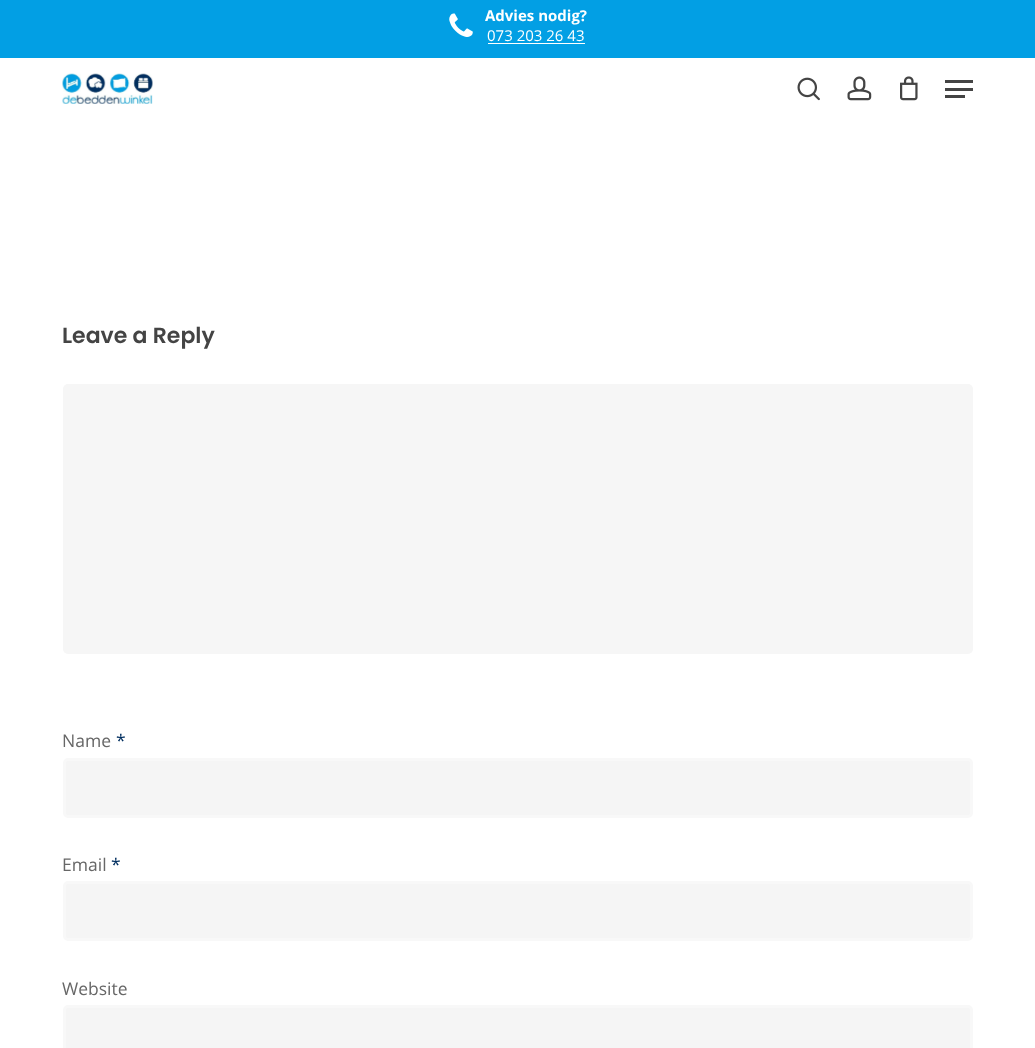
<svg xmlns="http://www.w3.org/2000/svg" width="1035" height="1048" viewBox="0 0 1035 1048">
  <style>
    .t1 { font: bold 15px Open Sans; fill: #fff; }
    .t2 { font: 15px Open Sans; fill: #fff; }
    .t3 { font: 600 22px Poppins; fill: #444; }
    .t4 { font: 17.5px Open Sans; fill: #676767; }
    .t5 { font: 17.5px Open Sans; fill: #002e5f; }
  </style>
  <rect width="100%" height="100%" fill="#fff"/>
  <rect x="0" y="0" width="1035" height="58" fill="#029fe4"/>
  <image x="449" y="13" width="24" height="24" href="images/1.png"/>
  <text x="485" y="21" class="t1">Advies nodig?</text>
  <text x="487" y="41" class="t2">073 203 26 43</text>
  <rect x="488" y="43" width="97" height="1" fill="#fff"/>
  <image x="62" y="73" width="91" height="31" href="images/2.png"/>
  <image x="797" y="77" width="23" height="24" href="images/3.png"/>
  <image x="847" y="76" width="25" height="25" href="images/4.png"/>
  <image x="900" y="76" width="18" height="25" href="images/5.png"/>
  <rect x="945" y="80" width="28" height="3" fill="#444"/>
  <rect x="945" y="95" width="20" height="3" fill="#444"/>
  <rect x="945" y="88" width="28" height="3" fill="#444"/>
  <text x="62" y="343" class="t3">Leave a Reply</text>
  <rect x="63" y="384" width="910" height="270" rx="5" fill="#f6f6f6"/>
  <text x="62" y="747" class="t4">Name</text>
  <text x="116" y="747" class="t5">*</text>
  <rect x="64.5" y="759.5" width="907" height="57" rx="3.5" fill="#f5f5f5" stroke="#f8f8f8" stroke-width="3"/>
  <text x="62" y="871" class="t4">Email</text>
  <text x="111" y="871" class="t5">*</text>
  <rect x="64.5" y="882.5" width="907" height="57" rx="3.5" fill="#f5f5f5" stroke="#f8f8f8" stroke-width="3"/>
  <text x="62" y="995" class="t4">Website</text>
  <rect x="64.5" y="1006.5" width="907" height="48" rx="3.5" fill="#f5f5f5" stroke="#f8f8f8" stroke-width="3"/>
</svg>
